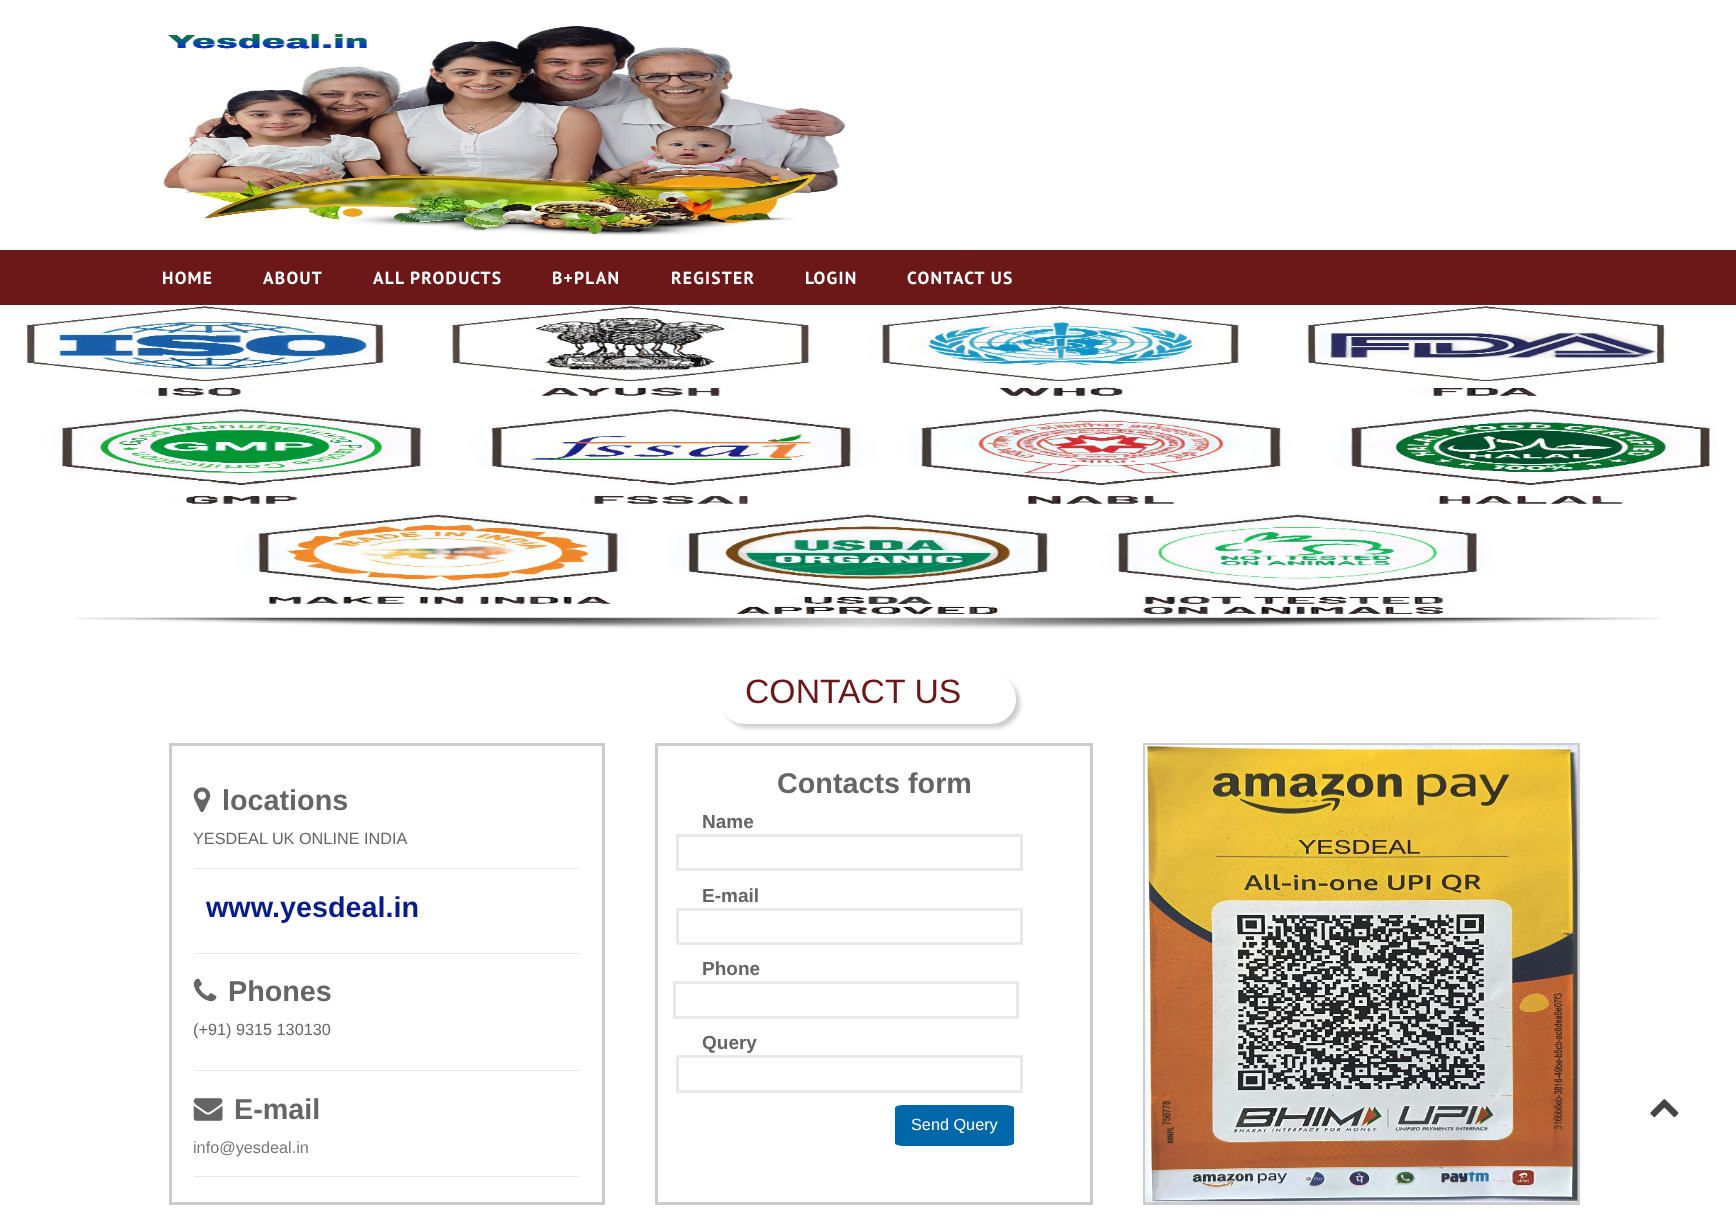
<svg xmlns="http://www.w3.org/2000/svg" width="1736" height="1223" viewBox="0 0 1736 1223">
  <style>
    .t1 { font: bold 17.5px PT Sans; letter-spacing: 1.25px; fill: #fff; }
    .t2 { font: 33.75px Liberation Sans; fill: #6c1818; }
    .t3 { font: bold 28.75px Liberation Sans; fill: #656565; }
    .t4 { font: 16.25px Liberation Sans; fill: #656565; }
    .t5 { font: bold 28.75px Liberation Sans; fill: #091d8a; }
    .t6 { font: 16.25px Liberation Sans; fill: #777; }
    .t7 { font: bold 19px Liberation Sans; fill: #656565; }
    .t8 { font: 16.25px Liberation Sans; fill: #fff; }
  </style>
  <defs>
    <clipPath id="clip1"><path d="M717 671H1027V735H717ZM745 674H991C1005 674 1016 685 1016 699C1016 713 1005 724 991 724H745C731 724 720 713 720 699C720 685 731 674 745 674Z" clip-rule="evenodd"/></clipPath>
  </defs>
  <rect width="100%" height="100%" fill="#fff"/>
  <image x="163" y="26" width="683" height="210" href="images/1.png"/>
  <rect x="0" y="250" width="1736" height="55" fill="#6c1818"/>
  <text x="162" y="284" class="t1">HOME</text>
  <text x="263" y="284" class="t1">ABOUT</text>
  <text x="373" y="284" class="t1">ALL PRODUCTS</text>
  <text x="552" y="284" class="t1">B+PLAN</text>
  <text x="671" y="284" class="t1">REGISTER</text>
  <text x="805" y="284" class="t1">LOGIN</text>
  <text x="907" y="284" class="t1">CONTACT US</text>
  <image x="75" y="617" width="1587" height="12" href="images/3.png"/>
  <image x="26" y="306" width="1690" height="312" href="images/2.png"/>
  <g clip-path="url(#clip1)">
    <rect x="724" y="678" width="296" height="50" rx="25" fill="#ccc" filter="blur(2px)"/>
  </g>
  <text x="745" y="703" class="t2">CONTACT US</text>
  <rect x="170.5" y="744.5" width="433" height="459" fill="none" stroke="#ccc" stroke-width="3"/>
  <rect x="194" y="868" width="386" height="1" fill="#e9e9e9"/>
  <image x="193" y="787" width="18" height="25" href="images/4.png"/>
  <text x="222" y="810" class="t3">locations</text>
  <text x="193" y="844" class="t4">YESDEAL UK ONLINE INDIA</text>
  <rect x="194" y="953" width="386" height="1" fill="#e9e9e9"/>
  <text x="206" y="917" class="t5">www.yesdeal.in</text>
  <rect x="194" y="1070" width="386" height="1" fill="#e9e9e9"/>
  <image x="193" y="978" width="24" height="24" href="images/5.png"/>
  <text x="228" y="1001" class="t3">Phones</text>
  <text x="193" y="1035" class="t4">(+91) 9315 130130</text>
  <rect x="194" y="1176" width="386" height="1" fill="#e9e9e9"/>
  <image x="193" y="1098" width="30" height="23" href="images/6.png"/>
  <text x="234" y="1119" class="t3">E-mail</text>
  <text x="193" y="1153" class="t6">info@yesdeal.in</text>
  <rect x="656.5" y="744.5" width="435" height="459" fill="none" stroke="#ccc" stroke-width="3"/>
  <text x="777" y="793" class="t3">Contacts form</text>
  <text x="702" y="828" class="t7">Name</text>
  <rect x="677.5" y="835.5" width="344" height="34" fill="none" stroke="#e9e9e9" stroke-width="3"/>
  <text x="702" y="902" class="t7">E-mail</text>
  <rect x="677.5" y="909.5" width="344" height="34" fill="none" stroke="#e9e9e9" stroke-width="3"/>
  <text x="702" y="975" class="t7">Phone</text>
  <rect x="674.5" y="982.5" width="343" height="35" fill="none" stroke="#e9e9e9" stroke-width="3"/>
  <text x="702" y="1049" class="t7">Query</text>
  <rect x="677.5" y="1056.5" width="344" height="35" fill="none" stroke="#e9e9e9" stroke-width="3"/>
  <path d="M904 1105H1004C1009 1105 1014 1106 1014 1108V1143C1014 1145 1009 1146 1004 1146H904C899 1146 895 1145 895 1143V1108C895 1106 899 1105 904 1105Z" fill="#0067a9"/>
  <text x="911" y="1130" class="t8">Send Query</text>
  <rect x="1144.5" y="744.5" width="434" height="459" fill="none" stroke="#ccc" stroke-width="3"/>
  <image x="1145" y="745" width="433" height="457" href="images/7.png"/>
  <image x="1650" y="1099" width="29" height="19" href="images/8.png"/>
</svg>
